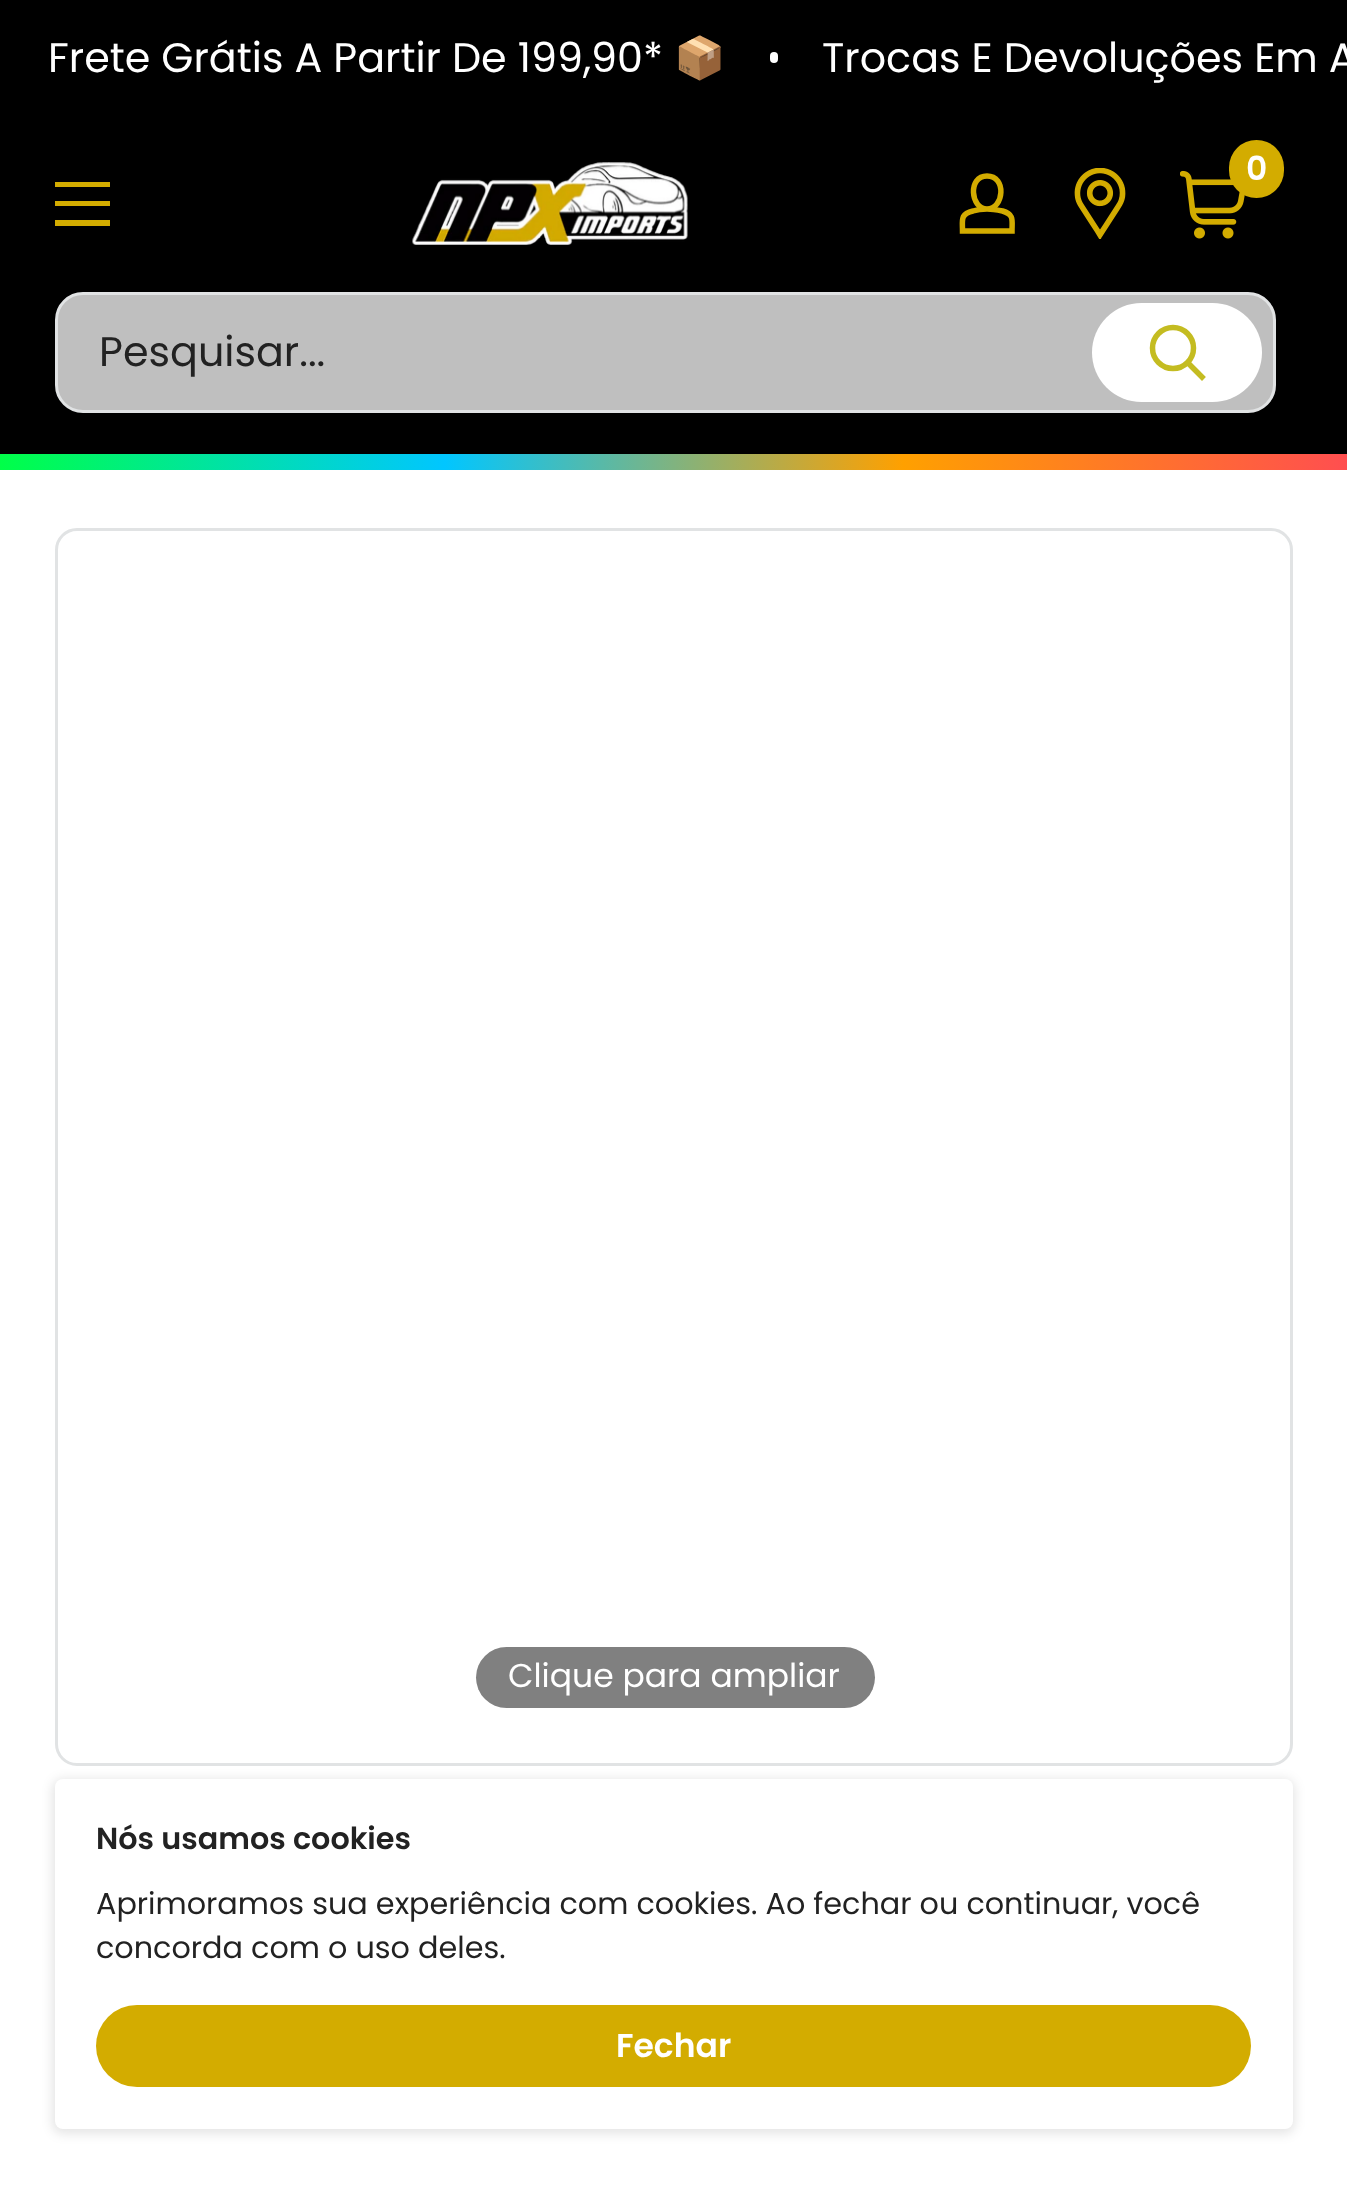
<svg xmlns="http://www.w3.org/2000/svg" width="1347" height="2195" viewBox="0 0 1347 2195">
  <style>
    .t1 { font: 41.25px Poppins; fill: #fff; }
    .t2 { font: 41.25px Noto Color Emoji; fill: #fff; }
    .t3 { font: 600 33px Poppins; fill: #fff; }
    .t4 { font: 41.25px Poppins; fill: #222; }
    .t5 { font: 33px Poppins; fill: #fff; }
    .t6 { font: 600 30.25px Poppins; fill: #222; }
    .t7 { font: 30.25px Poppins; fill: #222; }
  </style>
  <defs>
    <linearGradient id="g1" gradientUnits="userSpaceOnUse" x1="0" y1="462" x2="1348" y2="462"><stop offset="0" stop-color="#00ff48"/><stop offset="0.33" stop-color="#01c6ff"/><stop offset="0.67" stop-color="#ffa000"/><stop offset="1" stop-color="#ff4e50"/></linearGradient>
  </defs>
  <rect width="100%" height="100%" fill="#fff"/>
  <rect x="0" y="0" width="1347" height="116" fill="#000"/>
  <text x="48" y="72" class="t1">Frete Grátis A Partir De 199,90*</text>
  <text x="674" y="72" class="t2">📦</text>
  <rect x="770" y="52" width="8" height="11" rx="4" fill="#fff"/>
  <text x="822" y="72" class="t1">Trocas E Devoluções Em A</text>
  <rect x="0" y="116" width="1347" height="338" fill="#000"/>
  <path d="M55 220H110V226H55ZM55 182H110V187H55ZM55 201H110V206H55Z" fill="#d3ac00" fill-rule="evenodd"/>
  <image x="412" y="162" width="276" height="83" href="images/1.png"/>
  <path d="M987 209C992.5 209 997.5 210 1002.5 211C1014.5 214.5 1012 220.5 1012 231H962.5C962.5 220 960 214 973 211C977.5 209.5 982.5 209 987 209ZM987 209C970.5 209 967.5 176 987 176C1007 176 1004 209 987 209Z" fill="none" stroke="#d3ac00" stroke-width="5.5"/>
  <image x="1074" y="168" width="52" height="71" href="images/2.png"/>
  <image x="1180" y="170" width="65" height="69" href="images/3.png"/>
  <rect x="1229" y="140" width="55" height="58" rx="27.5" fill="#d3ac00"/>
  <text x="1246" y="180" class="t3">0</text>
  <rect x="56.5" y="293.5" width="1218" height="118" rx="26.5" fill="#bfbfbf" stroke="#e1e3e4" stroke-width="3"/>
  <text x="99" y="366" class="t4">Pesquisar...</text>
  <rect x="1092" y="303" width="170" height="99" rx="49.5" fill="#fff"/>
  <path d="M1202 377L1188 363" fill="none" stroke="#c4bc21" stroke-width="5.5" stroke-linecap="square"/>
  <circle cx="1173" cy="348" r="20.5" fill="none" stroke="#c4bc21" stroke-width="5.5"/>
  <rect x="0" y="454" width="1347" height="16" fill="url(#g1)"/>
  <rect x="56.5" y="529.5" width="1235" height="1235" rx="20.5" fill="none" stroke="#e1e3e4" stroke-width="3"/>
  <rect x="476" y="1647" width="399" height="61" rx="30.5" fill="#808080"/>
  <text x="508" y="1687" class="t5">Clique para ampliar</text>
  <rect x="52" y="1779" width="1243" height="355" rx="11" fill="#0000001a" filter="blur(5.5px)"/>
  <rect x="55" y="1779" width="1238" height="350" rx="8" fill="#fff"/>
  <text x="96" y="1849" class="t6">Nós usamos cookies</text>
  <text x="96" y="1914" class="t7">Aprimoramos sua experiência com cookies. Ao fechar ou continuar, você</text>
  <text x="96" y="1958" class="t7">concorda com o uso deles.</text>
  <rect x="96" y="2005" width="1155" height="82" rx="41" fill="#d3ac00"/>
  <text x="616" y="2057" class="t3">Fechar</text>
</svg>
